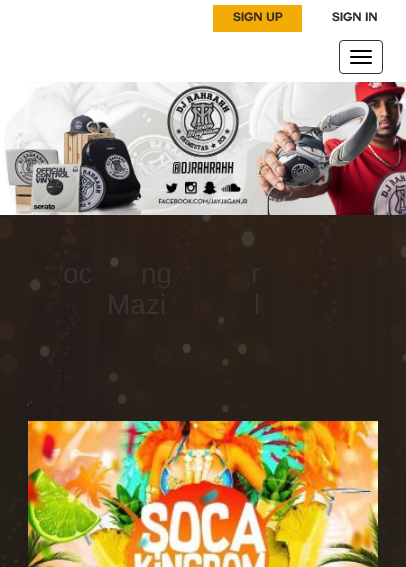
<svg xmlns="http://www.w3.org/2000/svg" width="406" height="567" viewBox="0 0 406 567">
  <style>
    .t1 { font: bold 12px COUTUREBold; fill: #352c27; }
    .t2 { font: 28px Liberation Sans; fill: #333; }
  </style>
  <rect width="100%" height="100%" fill="#fff"/>
  <rect x="213" y="5" width="89" height="27" fill="#f2ac05"/>
  <text x="233" y="21" class="t1">SIGN UP</text>
  <text x="332" y="21" class="t1">SIGN IN</text>
  <rect x="339.5" y="40.5" width="43" height="33" rx="3.5" fill="none" stroke="#333"/>
  <rect x="350" y="50" width="22" height="2" rx="1" fill="#000"/>
  <rect x="350" y="56" width="22" height="2" rx="1" fill="#000"/>
  <rect x="350" y="62" width="22" height="2" rx="1" fill="#000"/>
  <image x="4" y="82" width="402" height="133" href="images/1.png"/>
  <image x="0" y="215" width="406" height="352" href="images/2.png"/>
  <text x="63" y="283" class="t2">oc</text>
  <text x="141" y="283" class="t2">ng</text>
  <text x="251" y="283" class="t2">r</text>
  <text x="107" y="314" class="t2">Mazi</text>
  <text x="254" y="314" class="t2">l</text>
  <image x="28" y="421" width="350" height="146" href="images/3.png"/>
</svg>
